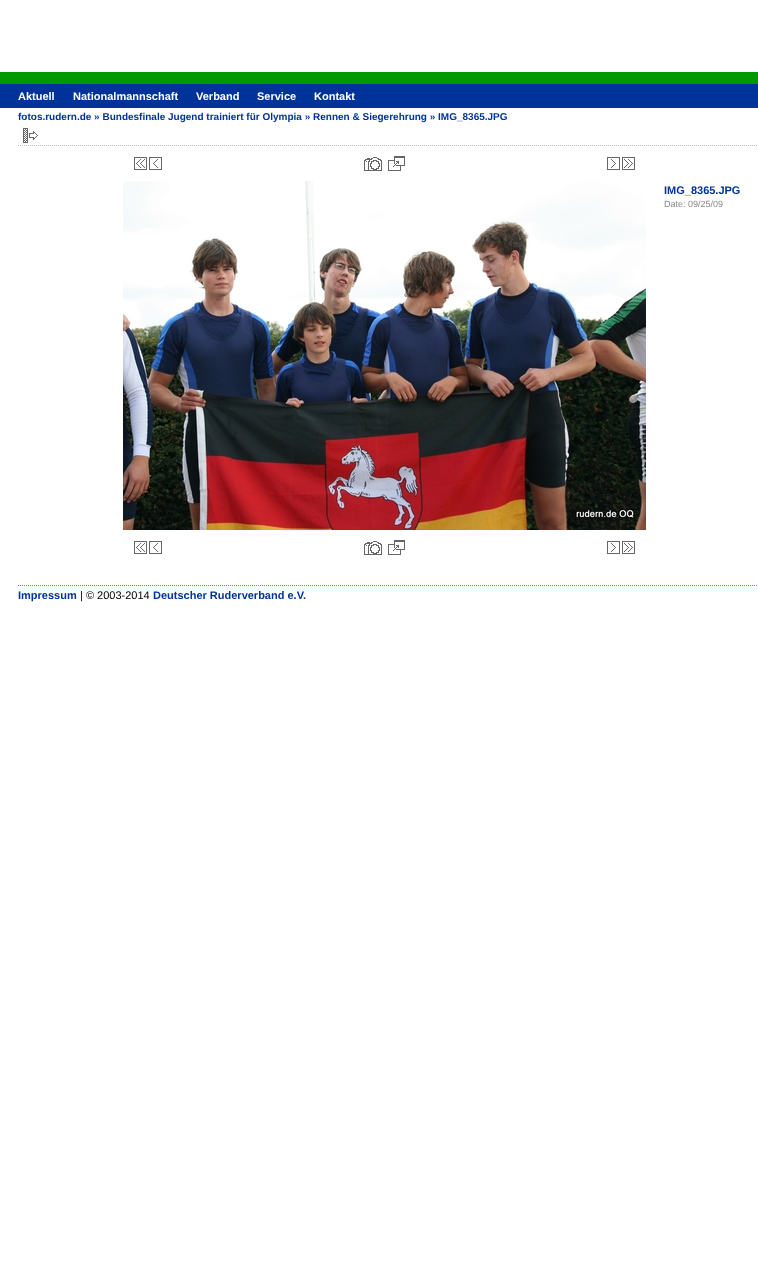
<svg xmlns="http://www.w3.org/2000/svg" width="758" height="1283" viewBox="0 0 758 1283">
  <style>
    .t1 { font: bold 11px Liberation Sans; fill: #fff; }
    .t2 { font: bold 10px Liberation Sans; fill: #039; }
    .t3 { font: bold 11px Liberation Sans; fill: #039; }
    .t4 { font: 9px Liberation Sans; fill: #888; }
    .t5 { font: 11px Liberation Sans; fill: #000; }
  </style>
  <rect width="100%" height="100%" fill="#fff"/>
  <rect x="0" y="84" width="758" height="24" fill="#039"/>
  <rect x="0" y="72" width="758" height="12" fill="#090"/>
  <text x="18" y="100" class="t1">Aktuell</text>
  <text x="73" y="100" class="t1">Nationalmannschaft</text>
  <text x="196" y="100" class="t1">Verband</text>
  <text x="257" y="100" class="t1">Service</text>
  <text x="314" y="100" class="t1">Kontakt</text>
  <text x="18" y="120" class="t2">fotos.rudern.de » Bundesfinale Jugend trainiert für Olympia » Rennen &amp; Siegerehrung » IMG_8365.JPG</text>
  <path d="M18 145.5H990" fill="none" stroke="#c0c0c0" stroke-dasharray="1 1"/>
  <image x="23" y="128" width="15" height="15" href="images/1.png"/>
  <image x="134" y="157" width="13" height="13" href="images/2.png"/>
  <image x="149" y="157" width="13" height="13" href="images/3.png"/>
  <image x="364" y="157" width="18" height="14" href="images/4.png"/>
  <image x="388" y="156" width="17" height="15" href="images/5.png"/>
  <image x="607" y="157" width="13" height="13" href="images/6.png"/>
  <image x="622" y="157" width="13" height="13" href="images/7.png"/>
  <image x="123" y="181" width="523" height="349" href="images/8.png"/>
  <text x="664" y="194" class="t3">IMG_8365.JPG</text>
  <text x="664" y="207" class="t4">Date: 09/25/09</text>
  <image x="134" y="541" width="13" height="13" href="images/2.png"/>
  <image x="149" y="541" width="13" height="13" href="images/3.png"/>
  <image x="364" y="541" width="18" height="14" href="images/4.png"/>
  <image x="388" y="540" width="17" height="15" href="images/5.png"/>
  <image x="607" y="541" width="13" height="13" href="images/6.png"/>
  <image x="622" y="541" width="13" height="13" href="images/7.png"/>
  <path d="M18 585.5H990" fill="none" stroke="#39c" stroke-dasharray="1 1"/>
  <text x="18" y="599" class="t3">Impressum</text>
  <text x="80" y="599" class="t5">| © 2003-2014</text>
  <text x="153" y="599" class="t3">Deutscher Ruderverband e.V.</text>
</svg>
